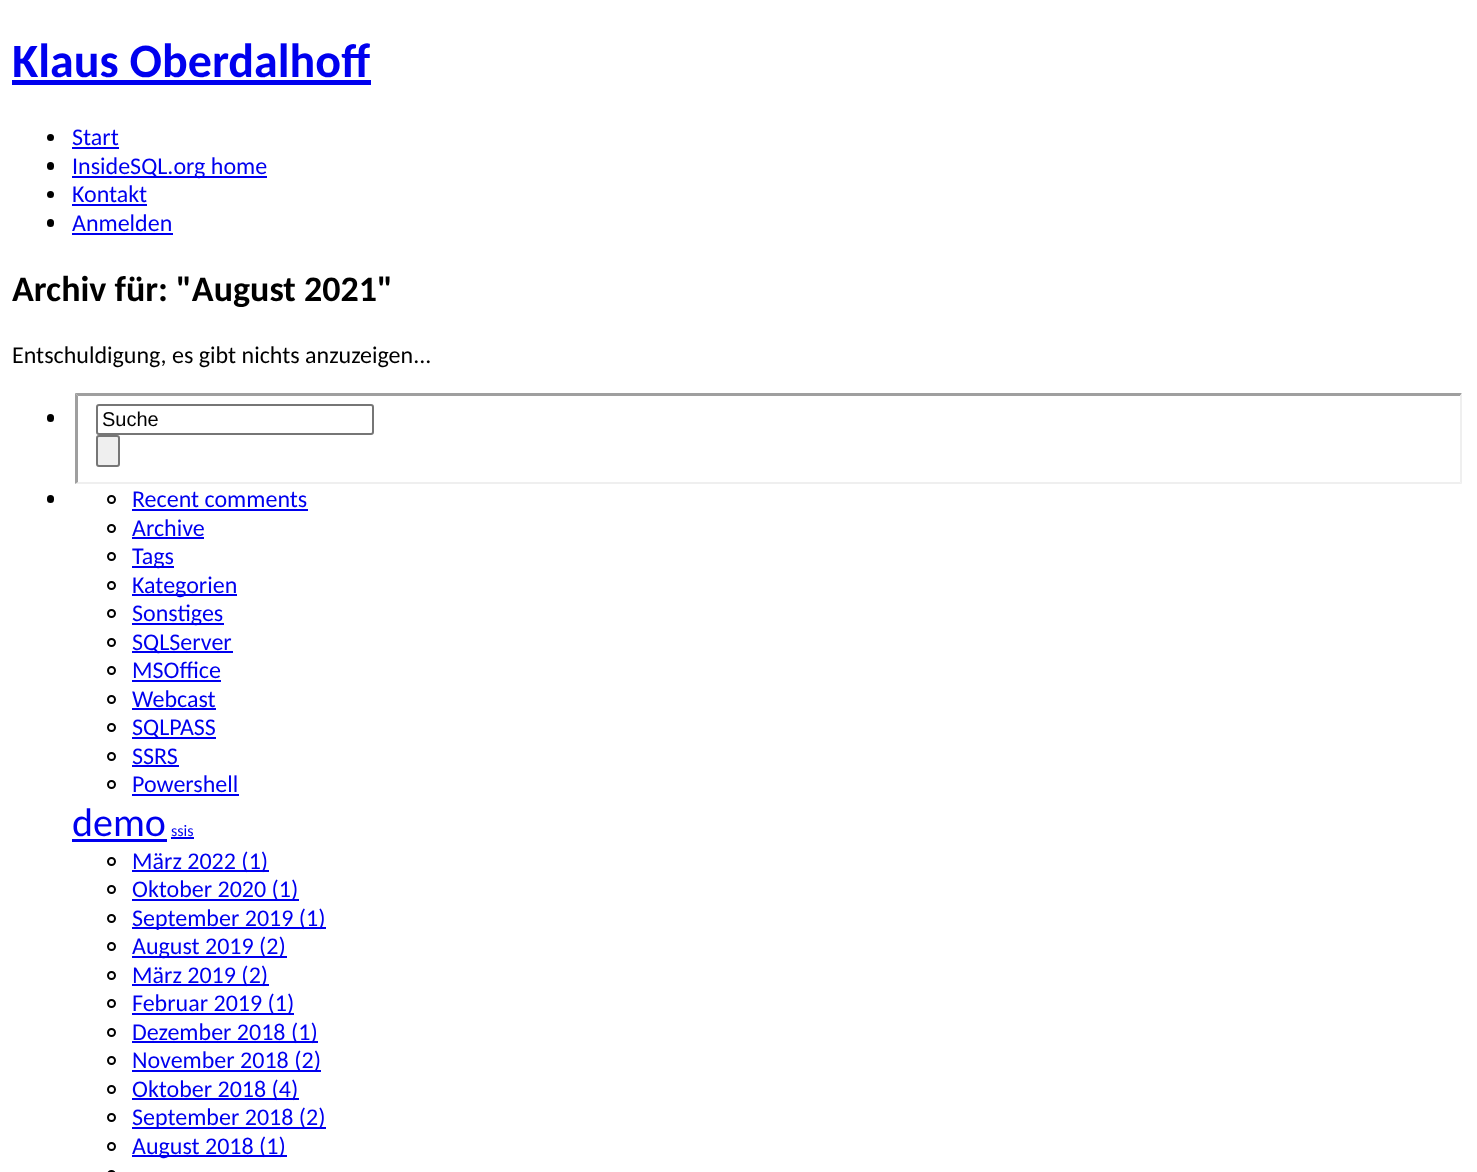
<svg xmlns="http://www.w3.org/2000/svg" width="1477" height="1172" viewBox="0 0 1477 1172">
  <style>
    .t1 { font: bold 48px Carlito; fill: #00e; }
    .t2 { font: 24px Carlito; fill: #00e; }
    .t3 { font: bold 36px Carlito; fill: #000; }
    .t4 { font: 24px Carlito; fill: #000; }
    .t5 { font: 20px Liberation Sans; fill: #000; }
    .t6 { font: 40px Carlito; fill: #00e; }
    .t7 { font: 16px Carlito; fill: #00e; }
  </style>
  <rect width="100%" height="100%" fill="#fff"/>
  <text x="12" y="77" class="t1">Klaus Oberdalhoff</text>
  <rect x="12" y="80" width="359" height="5" fill="#00e"/>
  <circle cx="50.5" cy="137.5" r="3.5" fill="#000"/>
  <text x="72" y="145" class="t2">Start</text>
  <rect x="72" y="147" width="47" height="2" fill="#00e"/>
  <rect x="47" y="162" width="7" height="8" rx="3.5" fill="#000"/>
  <rect x="72" y="176" width="195" height="2" fill="#00e"/>
  <text x="72" y="174" class="t2">InsideSQL.org home</text>
  <circle cx="50.5" cy="194.5" r="3.5" fill="#000"/>
  <text x="72" y="202" class="t2">Kontakt</text>
  <rect x="72" y="204" width="75" height="2" fill="#00e"/>
  <rect x="47" y="219" width="7" height="8" rx="3.5" fill="#000"/>
  <text x="72" y="231" class="t2">Anmelden</text>
  <rect x="72" y="233" width="101" height="2" fill="#00e"/>
  <text x="12" y="301" class="t3">Archiv für: "August 2021"</text>
  <text x="12" y="363" class="t4">Entschuldigung, es gibt nichts anzuzeigen...</text>
  <rect x="47" y="414" width="7" height="8" rx="3.5" fill="#000"/>
  <path d="M75 393H1462L1460 396H78Z" fill="#9f9f9f"/>
  <path d="M1462 393V484L1460 482V396Z" fill="#efefef"/>
  <path d="M1462 484H75L78 482H1460Z" fill="#efefef"/>
  <path d="M75 484V393L78 396V482Z" fill="#9f9f9f"/>
  <rect x="97" y="405" width="276" height="29" rx="2" fill="none" stroke="#767676" stroke-width="2"/>
  <text x="102" y="426" class="t5">Suche</text>
  <rect x="97" y="436" width="22" height="30" rx="2" fill="#efefef" stroke="#767676" stroke-width="2"/>
  <rect x="47" y="495" width="7" height="8" rx="3.5" fill="#000"/>
  <circle cx="111.5" cy="499.5" r="3.5" fill="none" stroke="#000" stroke-width="2"/>
  <text x="132" y="507" class="t2">Recent comments</text>
  <rect x="132" y="509" width="176" height="2" fill="#00e"/>
  <circle cx="111.5" cy="528.5" r="3.5" fill="none" stroke="#000" stroke-width="2"/>
  <text x="132" y="536" class="t2">Archive</text>
  <rect x="132" y="537" width="72" height="2" fill="#00e"/>
  <circle cx="111.5" cy="556.5" r="3.5" fill="none" stroke="#000" stroke-width="2"/>
  <rect x="132" y="566" width="42" height="2" fill="#00e"/>
  <text x="132" y="564" class="t2">Tags</text>
  <circle cx="111.5" cy="585.5" r="3.5" fill="none" stroke="#000" stroke-width="2"/>
  <rect x="132" y="594" width="105" height="2" fill="#00e"/>
  <text x="132" y="593" class="t2">Kategorien</text>
  <circle cx="111.5" cy="613.5" r="3.5" fill="none" stroke="#000" stroke-width="2"/>
  <rect x="132" y="623" width="92" height="2" fill="#00e"/>
  <text x="132" y="621" class="t2">Sonstiges</text>
  <circle cx="111.5" cy="642.5" r="3.5" fill="none" stroke="#000" stroke-width="2"/>
  <rect x="132" y="651" width="101" height="2" fill="#00e"/>
  <text x="132" y="650" class="t2">SQLServer</text>
  <circle cx="111.5" cy="670.5" r="3.5" fill="none" stroke="#000" stroke-width="2"/>
  <text x="132" y="678" class="t2">MSOffice</text>
  <rect x="132" y="680" width="89" height="2" fill="#00e"/>
  <circle cx="111.5" cy="699.5" r="3.5" fill="none" stroke="#000" stroke-width="2"/>
  <text x="132" y="707" class="t2">Webcast</text>
  <rect x="132" y="708" width="84" height="2" fill="#00e"/>
  <circle cx="111.5" cy="727.5" r="3.5" fill="none" stroke="#000" stroke-width="2"/>
  <rect x="132" y="737" width="84" height="2" fill="#00e"/>
  <text x="132" y="735" class="t2">SQLPASS</text>
  <circle cx="111.5" cy="756.5" r="3.5" fill="none" stroke="#000" stroke-width="2"/>
  <text x="132" y="764" class="t2">SSRS</text>
  <rect x="132" y="765" width="47" height="2" fill="#00e"/>
  <circle cx="111.5" cy="784.5" r="3.5" fill="none" stroke="#000" stroke-width="2"/>
  <text x="132" y="792" class="t2">Powershell</text>
  <rect x="132" y="794" width="107" height="2" fill="#00e"/>
  <text x="72" y="836" class="t6">demo</text>
  <rect x="72" y="839" width="95" height="3" fill="#00e"/>
  <text x="171" y="836" class="t7">ssis</text>
  <rect x="171" y="837" width="23" height="2" fill="#00e"/>
  <circle cx="111.5" cy="861.5" r="3.5" fill="none" stroke="#000" stroke-width="2"/>
  <rect x="132" y="870" width="137" height="2" fill="#00e"/>
  <text x="132" y="869" class="t2">März 2022 (1)</text>
  <circle cx="111.5" cy="889.5" r="3.5" fill="none" stroke="#000" stroke-width="2"/>
  <rect x="132" y="899" width="167" height="2" fill="#00e"/>
  <text x="132" y="897" class="t2">Oktober 2020 (1)</text>
  <circle cx="111.5" cy="918.5" r="3.5" fill="none" stroke="#000" stroke-width="2"/>
  <rect x="132" y="927" width="194" height="2" fill="#00e"/>
  <text x="132" y="926" class="t2">September 2019 (1)</text>
  <circle cx="111.5" cy="946.5" r="3.5" fill="none" stroke="#000" stroke-width="2"/>
  <rect x="132" y="956" width="155" height="2" fill="#00e"/>
  <text x="132" y="954" class="t2">August 2019 (2)</text>
  <circle cx="111.5" cy="975.5" r="3.5" fill="none" stroke="#000" stroke-width="2"/>
  <rect x="132" y="984" width="137" height="2" fill="#00e"/>
  <text x="132" y="983" class="t2">März 2019 (2)</text>
  <circle cx="111.5" cy="1003.5" r="3.5" fill="none" stroke="#000" stroke-width="2"/>
  <rect x="132" y="1013" width="162" height="2" fill="#00e"/>
  <text x="132" y="1011" class="t2">Februar 2019 (1)</text>
  <circle cx="111.5" cy="1032.5" r="3.5" fill="none" stroke="#000" stroke-width="2"/>
  <rect x="132" y="1041" width="186" height="2" fill="#00e"/>
  <text x="132" y="1040" class="t2">Dezember 2018 (1)</text>
  <circle cx="111.5" cy="1060.5" r="3.5" fill="none" stroke="#000" stroke-width="2"/>
  <rect x="132" y="1070" width="189" height="2" fill="#00e"/>
  <text x="132" y="1068" class="t2">November 2018 (2)</text>
  <circle cx="111.5" cy="1089.5" r="3.5" fill="none" stroke="#000" stroke-width="2"/>
  <rect x="132" y="1098" width="167" height="2" fill="#00e"/>
  <text x="132" y="1097" class="t2">Oktober 2018 (4)</text>
  <circle cx="111.5" cy="1117.5" r="3.5" fill="none" stroke="#000" stroke-width="2"/>
  <rect x="132" y="1127" width="194" height="2" fill="#00e"/>
  <text x="132" y="1125" class="t2">September 2018 (2)</text>
  <circle cx="111.5" cy="1146.5" r="3.5" fill="none" stroke="#000" stroke-width="2"/>
  <rect x="132" y="1155" width="155" height="2" fill="#00e"/>
  <text x="132" y="1154" class="t2">August 2018 (1)</text>
  <circle cx="111.5" cy="1174.5" r="3.5" fill="none" stroke="#000" stroke-width="2"/>
</svg>
